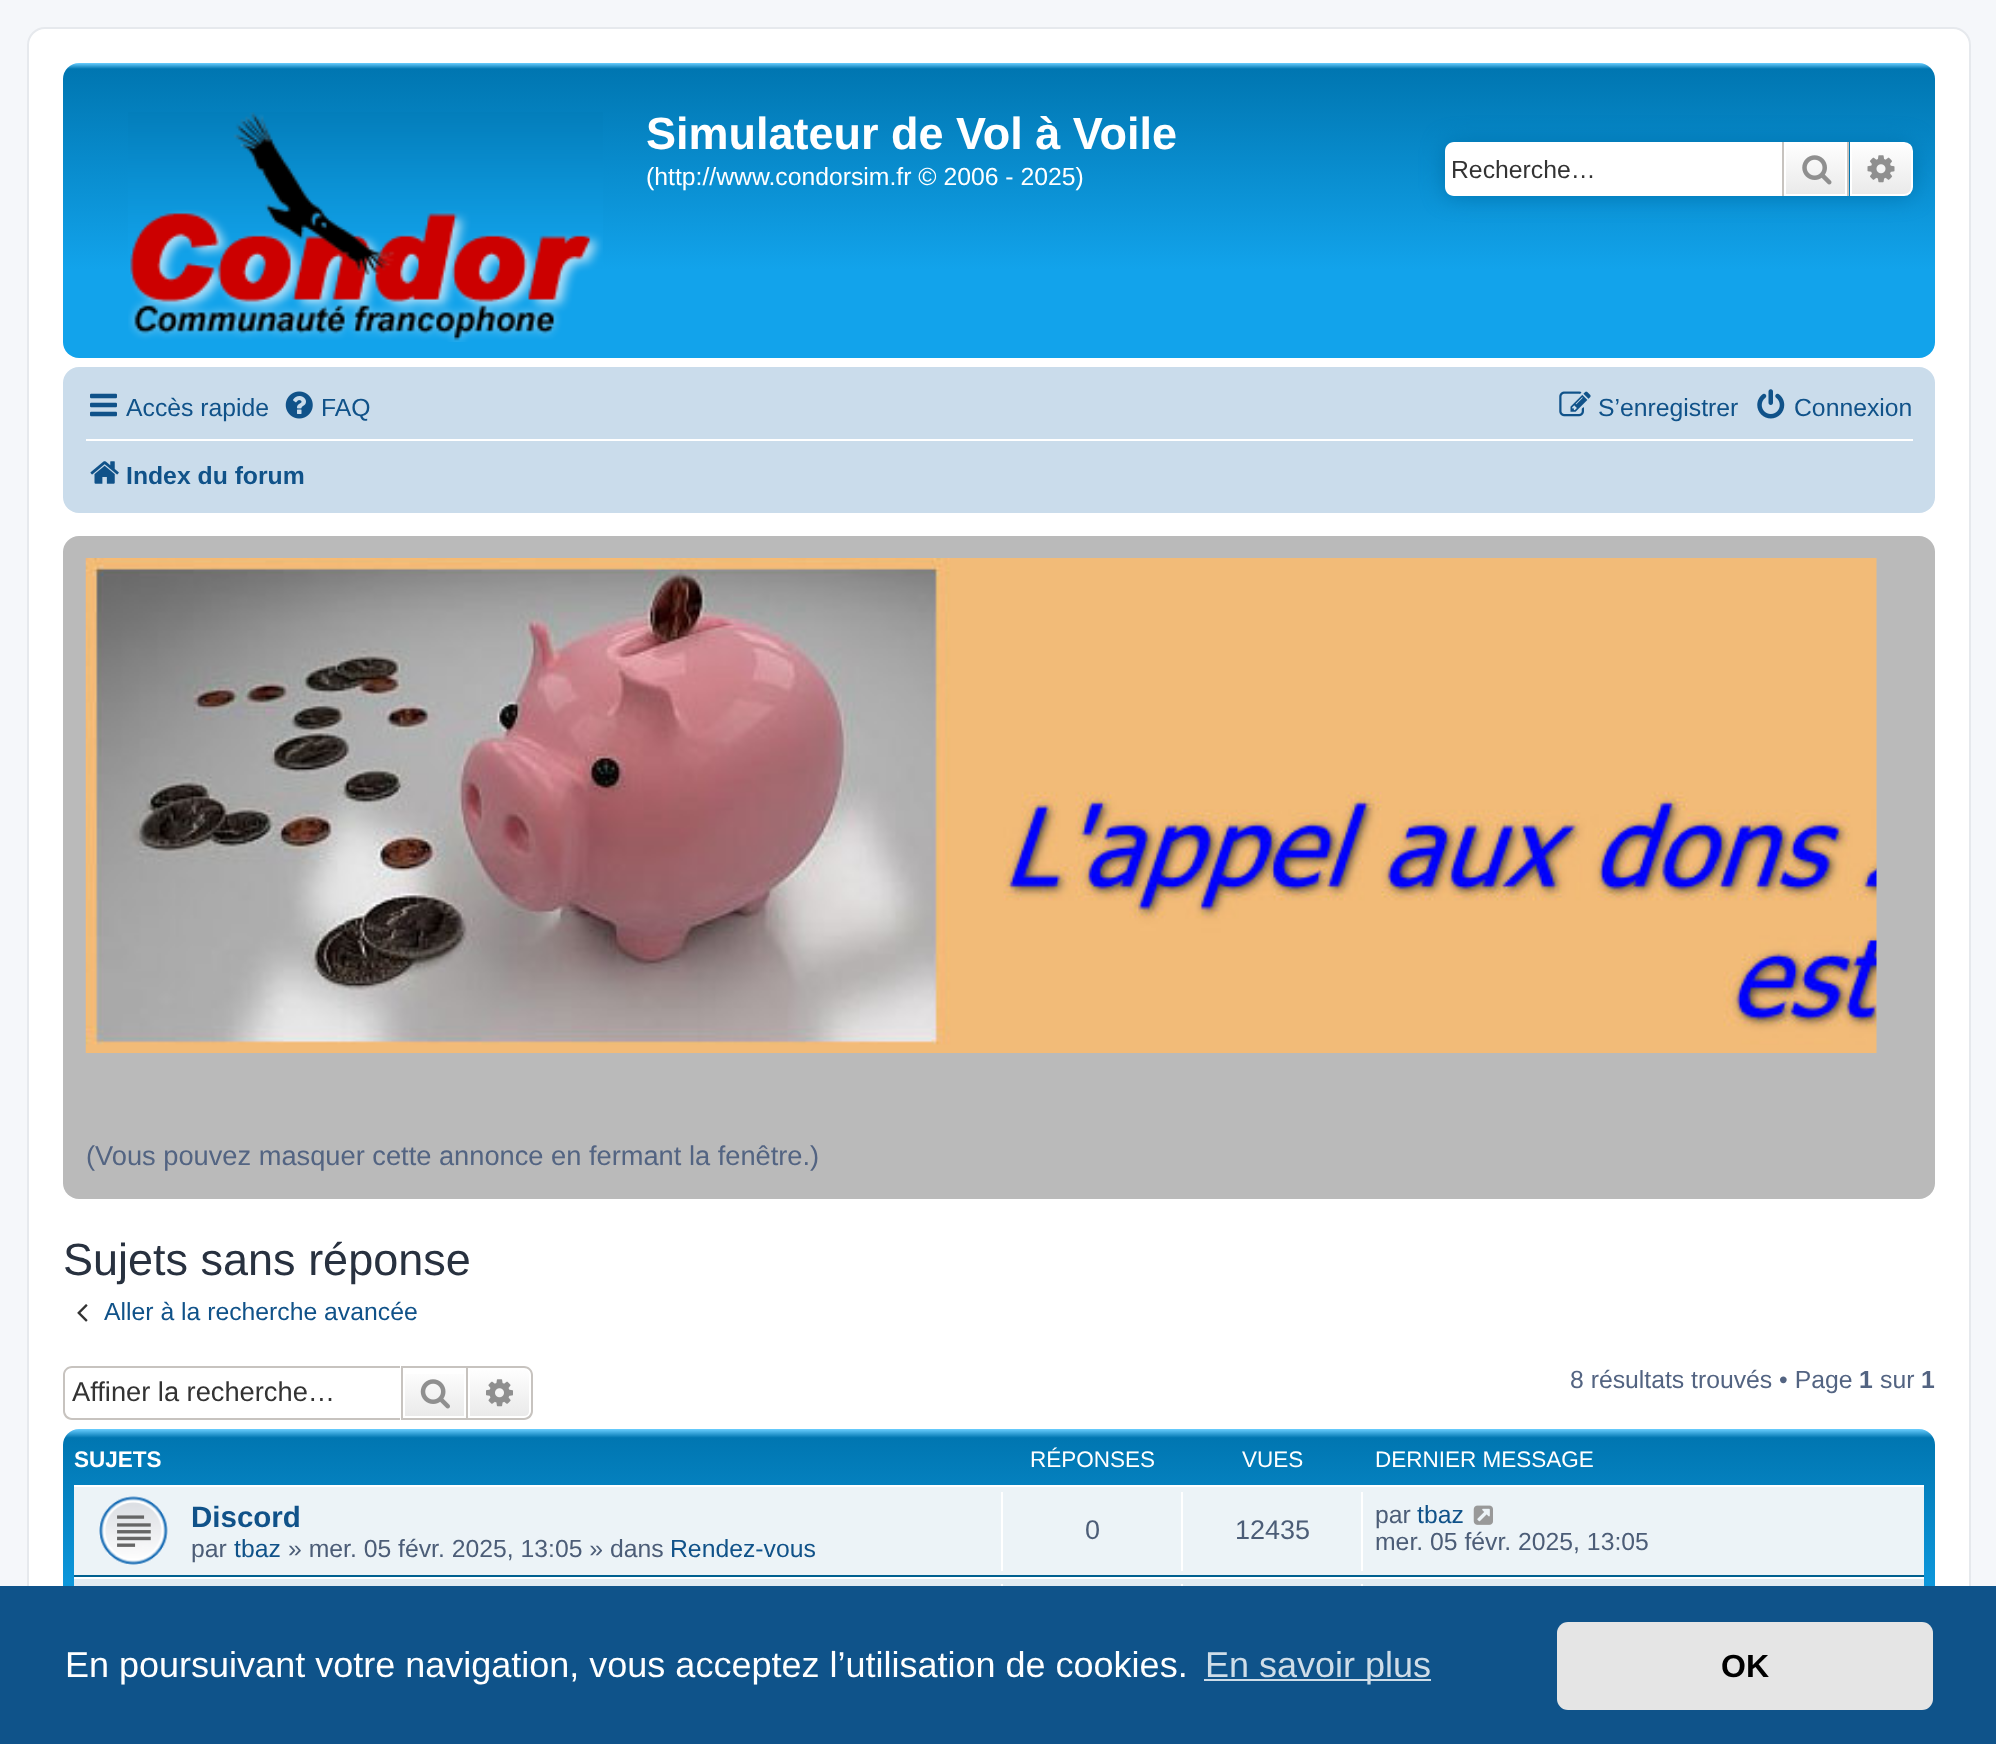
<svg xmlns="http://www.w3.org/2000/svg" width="1996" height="1744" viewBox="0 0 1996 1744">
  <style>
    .t1 { font: bold 45px Liberation Sans; fill: #fff; }
    .t2 { font: 24.75px Liberation Sans; fill: #fff; }
    .t3 { font: 24.75px Liberation Sans; fill: #333; }
    .t4 { font: 24.75px Liberation Sans; fill: #105289; }
    .t5 { font: bold 24.75px Liberation Sans; fill: #105289; }
    .t6 { font: 27.25px Liberation Sans; fill: #536482; }
    .t7 { font: 45px Liberation Sans; fill: #28313f; }
    .t8 { font: 27.25px Liberation Sans; fill: #333; }
    .t9 { font: 24.75px Liberation Sans; fill: #536482; }
    .t10 { font: bold 24.75px Liberation Sans; fill: #536482; }
    .t11 { font: bold 22.5px Liberation Sans; fill: #fff; }
    .t12 { font: 22.5px Liberation Sans; fill: #fff; }
    .t13 { font: bold 29.5px Liberation Sans; fill: #105289; }
    .t14 { font: 24.75px Liberation Sans; fill: #4c5d77; }
    .t15 { font: 27px Liberation Sans; fill: #4c5d77; }
    .t16 { font: 36px Liberation Sans; fill: #fff; }
    .t17 { font: 36px Liberation Sans; fill: #cfdde8; }
    .t18 { font: bold 32px Liberation Sans; fill: #000; }
  </style>
  <defs>
    <linearGradient id="g1" gradientUnits="userSpaceOnUse" x1="999" y1="63" x2="999" y2="358"><stop offset="0" stop-color="#6aceff"/><stop offset="0.02" stop-color="#0076b1"/><stop offset="0.7" stop-color="#12a3eb"/><stop offset="1" stop-color="#12a3eb"/></linearGradient>
    <linearGradient id="g2" gradientUnits="userSpaceOnUse" x1="1816" y1="142" x2="1816" y2="196"><stop offset="0" stop-color="#fff"/><stop offset="1" stop-color="#e9e9e9"/></linearGradient>
    <linearGradient id="g3" gradientUnits="userSpaceOnUse" x1="1881" y1="142" x2="1881" y2="196"><stop offset="0" stop-color="#fff"/><stop offset="1" stop-color="#e9e9e9"/></linearGradient>
    <linearGradient id="g4" gradientUnits="userSpaceOnUse" x1="434" y1="1368" x2="434" y2="1418"><stop offset="0" stop-color="#fff"/><stop offset="1" stop-color="#e9e9e9"/></linearGradient>
    <linearGradient id="g5" gradientUnits="userSpaceOnUse" x1="500" y1="1368" x2="500" y2="1418"><stop offset="0" stop-color="#fff"/><stop offset="1" stop-color="#e9e9e9"/></linearGradient>
    <linearGradient id="g6" gradientUnits="userSpaceOnUse" x1="999" y1="1429" x2="999" y2="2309"><stop offset="0" stop-color="#6aceff"/><stop offset="0.01" stop-color="#0076b1"/><stop offset="0.24" stop-color="#12a3eb"/><stop offset="1" stop-color="#12a3eb"/></linearGradient>
  </defs>
  <rect width="100%" height="100%" fill="#f5f7fa"/>
  <rect x="28" y="28" width="1942" height="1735" rx="17" fill="#fff" stroke="#e6e9ed" stroke-width="2"/>
  <rect x="63" y="63" width="1872" height="295" rx="16" fill="url(#g1)"/>
  <image x="128" y="112" width="475" height="230" href="images/1.png"/>
  <text x="646" y="149" class="t1">Simulateur de Vol à Voile</text>
  <text x="646" y="185" class="t2">(http://www.condorsim.fr © 2006 - 2025)</text>
  <rect x="1445" y="142" width="468" height="54" rx="9" fill="#0075b0" filter="blur(11px)"/>
  <path d="M1454 142H1782V196H1454C1449 196 1445 192 1445 187V151C1445 146 1449 142 1454 142Z" fill="#fff"/>
  <text x="1451" y="178" class="t3">Recherche…</text>
  <rect x="1786" y="144" width="59" height="50" fill="url(#g2)"/>
  <rect x="1785" y="143" width="61" height="52" fill="none" stroke="#fff" stroke-width="2"/>
  <rect x="1847" y="142" width="2" height="54" fill="#c7c3bf"/>
  <rect x="1782" y="142" width="2" height="54" fill="#c7c3bf"/>
  <image x="1802" y="155" width="30" height="30" href="images/2.png"/>
  <path d="M1851 143H1904C1908.5 143 1912 146.5 1912 151V187C1912 191.5 1908.5 195 1904 195H1851Z" fill="url(#g3)" stroke="#fff" stroke-width="2"/>
  <image x="1867" y="155" width="28" height="28" href="images/3.png"/>
  <rect x="63" y="367" width="1872" height="146" rx="16" fill="#cadceb"/>
  <image x="90" y="393" width="27" height="24" href="images/4.png"/>
  <text x="126" y="416" class="t4">Accès rapide</text>
  <image x="285" y="391" width="28" height="28" href="images/5.png"/>
  <text x="321" y="416" class="t4">FAQ</text>
  <image x="1559" y="391" width="32" height="26" href="images/6.png"/>
  <text x="1598" y="416" class="t4">S’enregistrer</text>
  <image x="1757" y="389" width="28" height="30" href="images/7.png"/>
  <text x="1794" y="416" class="t4">Connexion</text>
  <rect x="86" y="439" width="1827" height="2" fill="#fff"/>
  <image x="90" y="461" width="29" height="23" href="images/8.png"/>
  <text x="126" y="484" class="t5">Index du forum</text>
  <rect x="63" y="536" width="1872" height="663" rx="16" fill="#bababa"/>
  <image x="85" y="558" width="1792" height="495" href="images/9.png"/>
  <text x="86" y="1165" class="t6">(Vous pouvez masquer cette annonce en fermant la fenêtre.)</text>
  <text x="63" y="1275" class="t7">Sujets sans réponse</text>
  <image x="77" y="1304" width="11" height="18" href="images/10.png"/>
  <text x="104" y="1320" class="t4">Aller à la recherche avancée</text>
  <path d="M72 1366H400V1420H72C67 1420 63 1416 63 1411V1375C63 1370 67 1366 72 1366ZM72 1368H400V1418H72C68 1418 65 1414 65 1411V1375C65 1371 68 1368 72 1368Z" fill="#c7c3bf" fill-rule="evenodd"/>
  <text x="72" y="1401" class="t8">Affiner la recherche…</text>
  <rect x="405" y="1374" width="59" height="42" fill="url(#g4)"/>
  <rect x="402" y="1367" width="65" height="52" fill="none" stroke="#c7c3bf" stroke-width="2"/>
  <image x="420" y="1379" width="30" height="30" href="images/11.png"/>
  <path d="M469 1369H524C527.5 1369 530 1371.5 530 1375V1411C530 1414.5 527.5 1417 524 1417H469Z" fill="url(#g5)" stroke="#fff" stroke-width="2"/>
  <path d="M468 1366H524C529 1366 533 1370 533 1375V1411C533 1416 529 1420 524 1420H468ZM468 1368H524C528 1368 531 1371 531 1375V1411C531 1414 528 1418 524 1418H468Z" fill="#c7c3bf" fill-rule="evenodd"/>
  <image x="486" y="1379" width="27" height="28" href="images/12.png"/>
  <text x="1570" y="1388" class="t9">8 résultats trouvés • Page</text>
  <text x="1859" y="1388" class="t10">1</text>
  <text x="1880" y="1388" class="t9">sur</text>
  <text x="1921" y="1388" class="t10">1</text>
  <rect x="63" y="1429" width="1872" height="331" rx="16" fill="url(#g6)"/>
  <text x="74" y="1467" class="t11">SUJETS</text>
  <text x="1030" y="1467" class="t12">RÉPONSES</text>
  <text x="1242" y="1467" class="t12">VUES</text>
  <text x="1375" y="1467" class="t12">DERNIER MESSAGE</text>
  <rect x="74" y="1487" width="1850" height="88" fill="#ecf3f7"/>
  <rect x="74" y="1485" width="1850" height="2" fill="#fff"/>
  <rect x="74" y="1575" width="1850" height="2" fill="#00608f"/>
  <image x="99" y="1496" width="69" height="69" href="images/13.png"/>
  <text x="191" y="1527" class="t13">Discord</text>
  <text x="191" y="1557" class="t14">par</text>
  <text x="234" y="1557" class="t4">tbaz</text>
  <text x="288" y="1557" class="t14">» mer. 05 févr. 2025, 13:05 » dans</text>
  <text x="670" y="1557" class="t4">Rendez-vous</text>
  <rect x="1001" y="1492" width="2" height="79" fill="#fff"/>
  <text x="1085" y="1539" class="t15">0</text>
  <rect x="1181" y="1492" width="2" height="79" fill="#fff"/>
  <text x="1235" y="1539" class="t15">12435</text>
  <rect x="1361" y="1492" width="2" height="79" fill="#fff"/>
  <text x="1375" y="1523" class="t14">par</text>
  <text x="1417" y="1523" class="t4">tbaz</text>
  <image x="1473" y="1505" width="20" height="20" href="images/14.png"/>
  <text x="1375" y="1550" class="t14">mer. 05 févr. 2025, 13:05</text>
  <rect x="74" y="1579" width="1850" height="7" fill="#e1ebf2"/>
  <rect x="74" y="1577" width="1850" height="2" fill="#fff"/>
  <rect x="1001" y="1584" width="2" height="2" fill="#fff"/>
  <rect x="1181" y="1584" width="2" height="2" fill="#fff"/>
  <rect x="1361" y="1584" width="2" height="2" fill="#fff"/>
  <rect x="0" y="1586" width="1996" height="158" fill="#0f538a"/>
  <text x="65" y="1677" class="t16">En poursuivant votre navigation, vous acceptez l’utilisation de cookies.</text>
  <rect x="1204" y="1679" width="227" height="2" fill="#cfdde8"/>
  <text x="1205" y="1677" class="t17">En savoir plus</text>
  <rect x="1557" y="1622" width="376" height="88" rx="11" fill="#e5e5e5"/>
  <text x="1721" y="1677" class="t18">OK</text>
</svg>
